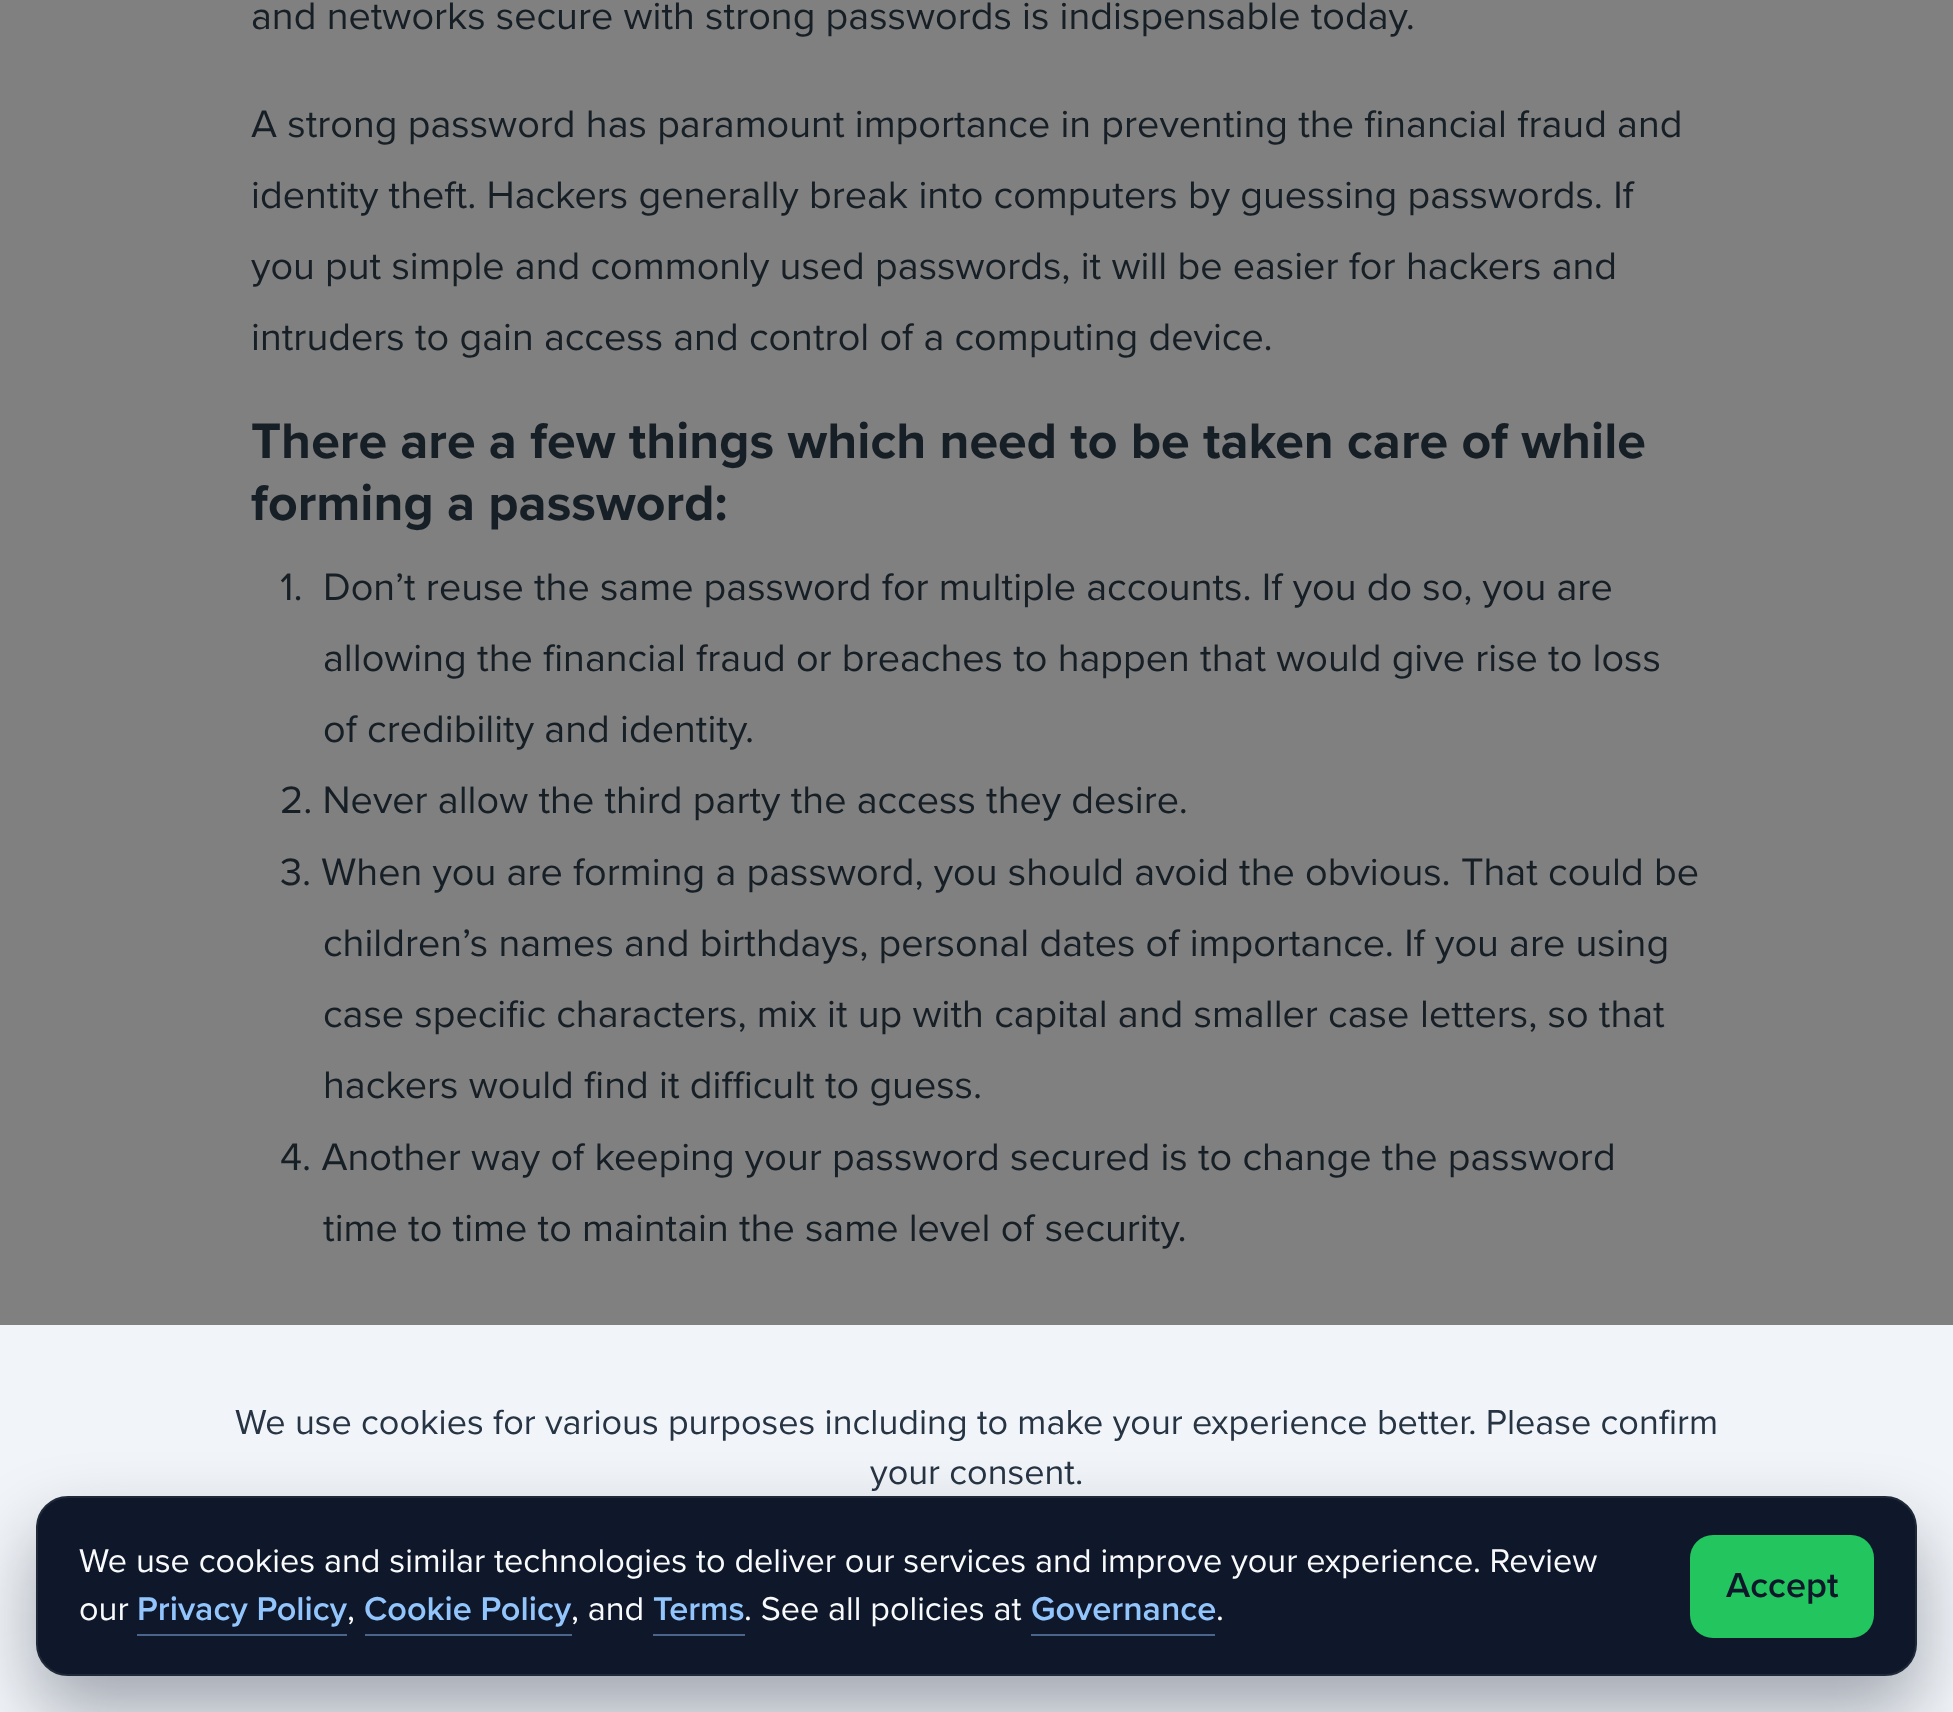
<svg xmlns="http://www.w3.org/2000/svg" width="1953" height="1712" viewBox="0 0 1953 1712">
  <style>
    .t1 { font: 39.6px Proxima Nova; fill: #171f26; }
    .t2 { font: bold 51.75px Proxima Nova; fill: #171f26; }
    .t3 { font: 36px Proxima Nova; fill: #273444; }
    .t4 { font: 34.2px Proxima Nova; fill: #f8fafc; }
    .t5 { font: 600 34.2px Proxima Nova; fill: #93c5fd; }
    .t6 { font: 600 36px Proxima Nova; fill: #0f172a; }
  </style>
  <rect width="100%" height="100%" fill="#808080"/>
  <text x="251" y="29" class="t1">and networks secure with strong passwords is indispensable today.</text>
  <text x="251" y="137" class="t1">A strong password has paramount importance in preventing the financial fraud and</text>
  <text x="251" y="208" class="t1">identity theft. Hackers generally break into computers by guessing passwords. If</text>
  <text x="251" y="279" class="t1">you put simple and commonly used passwords, it will be easier for</text>
  <text x="1406" y="279" class="t1">hackers and</text>
  <text x="251" y="350" class="t1">intruders to gain access and control of a computing device.</text>
  <text x="251" y="458" class="t2">There are a few things which need to be taken care of while</text>
  <text x="251" y="520" class="t2">forming a password:</text>
  <text x="280" y="600" class="t1">1.</text>
  <text x="323" y="600" class="t1">Don’t reuse the same password for multiple accounts. If you do so, you are</text>
  <text x="323" y="671" class="t1">allowing the financial fraud or breaches to happen that would give rise to loss</text>
  <text x="323" y="742" class="t1">of credibility and identity.</text>
  <text x="280" y="813" class="t1">2. Never allow the third party the access they desire.</text>
  <text x="280" y="885" class="t1">3. When you are forming a password, you should avoid the obvious. That could be</text>
  <text x="323" y="956" class="t1">children’s names and birthdays, personal dates of importance. If you are using</text>
  <text x="323" y="1027" class="t1">case specific characters, mix it up with capital and smaller case</text>
  <text x="1420" y="1027" class="t1">letters, so that</text>
  <text x="323" y="1098" class="t1">hackers would find it difficult to guess.</text>
  <text x="280" y="1170" class="t1">4. Another way of keeping your password secured is to change the password</text>
  <text x="323" y="1241" class="t1">time to time to maintain the same level of security.</text>
  <rect x="0" y="1325" width="1953" height="387" fill="#f1f4f8"/>
  <text x="235" y="1434" class="t3">We use cookies for various purposes including to make your experience better. Please confirm</text>
  <text x="870" y="1484" class="t3">your consent.</text>
  <rect x="36" y="1532" width="1881" height="180" rx="32" fill="#0f172a59" filter="blur(36px)"/>
  <rect x="37" y="1497" width="1879" height="178" rx="31" fill="#0f172a" stroke="#1f2937" stroke-width="2"/>
  <text x="79" y="1572" class="t4">We use cookies and similar technologies to deliver our services and improve your experience. Review</text>
  <text x="79" y="1620" class="t4">our</text>
  <text x="137" y="1620" class="t5">Privacy Policy</text>
  <rect x="137" y="1634" width="210" height="2" fill="#4a6589"/>
  <text x="347" y="1620" class="t4">,</text>
  <text x="364" y="1620" class="t5">Cookie Policy</text>
  <rect x="365" y="1634" width="207" height="2" fill="#4a6589"/>
  <text x="571" y="1620" class="t4">, and</text>
  <text x="653" y="1620" class="t5">Terms</text>
  <rect x="653" y="1634" width="92" height="2" fill="#4a6589"/>
  <text x="744" y="1620" class="t4">. See all policies at</text>
  <text x="1031" y="1620" class="t5">Governance</text>
  <rect x="1031" y="1634" width="184" height="2" fill="#4a6589"/>
  <text x="1216" y="1620" class="t4">.</text>
  <rect x="1690" y="1535" width="184" height="103" rx="23" fill="#22c55e"/>
  <text x="1726" y="1597" class="t6">Accept</text>
</svg>
